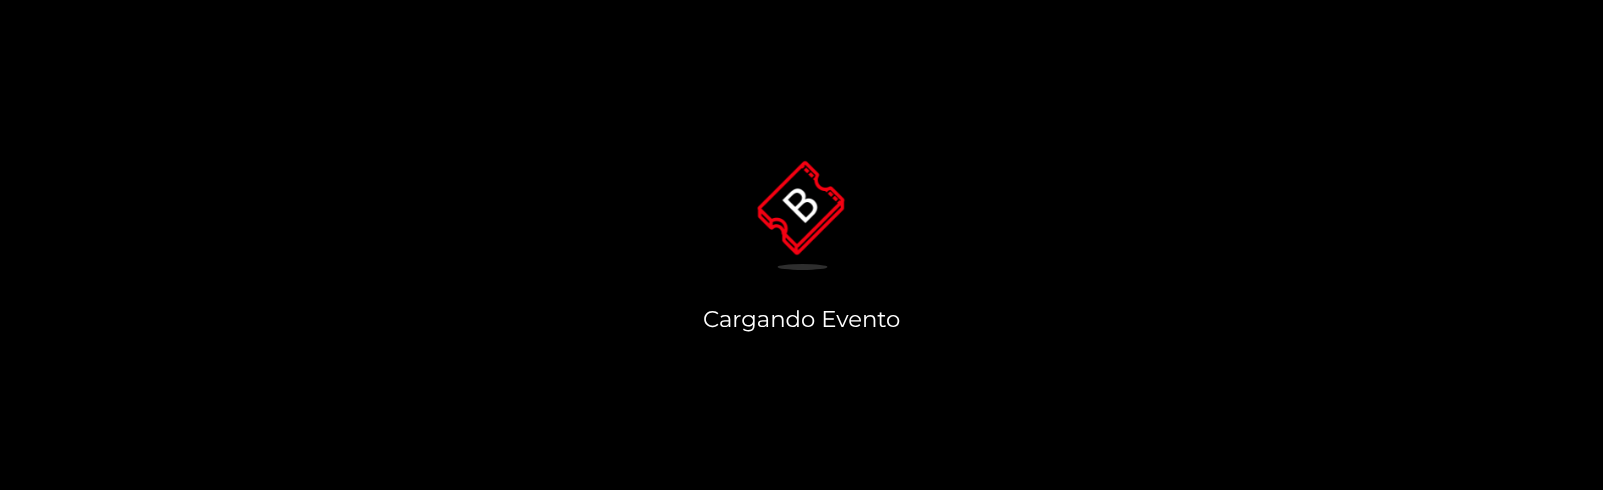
<svg xmlns="http://www.w3.org/2000/svg" width="1603" height="490" viewBox="0 0 1603 490">
  <style>
    .t1 { font: 100 22.75px Montserrat; fill: #fff; }
  </style>
  <rect width="100%" height="100%" fill="#000"/>
  <image x="757" y="160" width="89" height="96" href="images/1.png"/>
  <ellipse cx="802.5" cy="267" rx="25" ry="3" fill="#2e2e2e"/>
  <text x="703" y="327" class="t1">Cargando Evento</text>
</svg>
